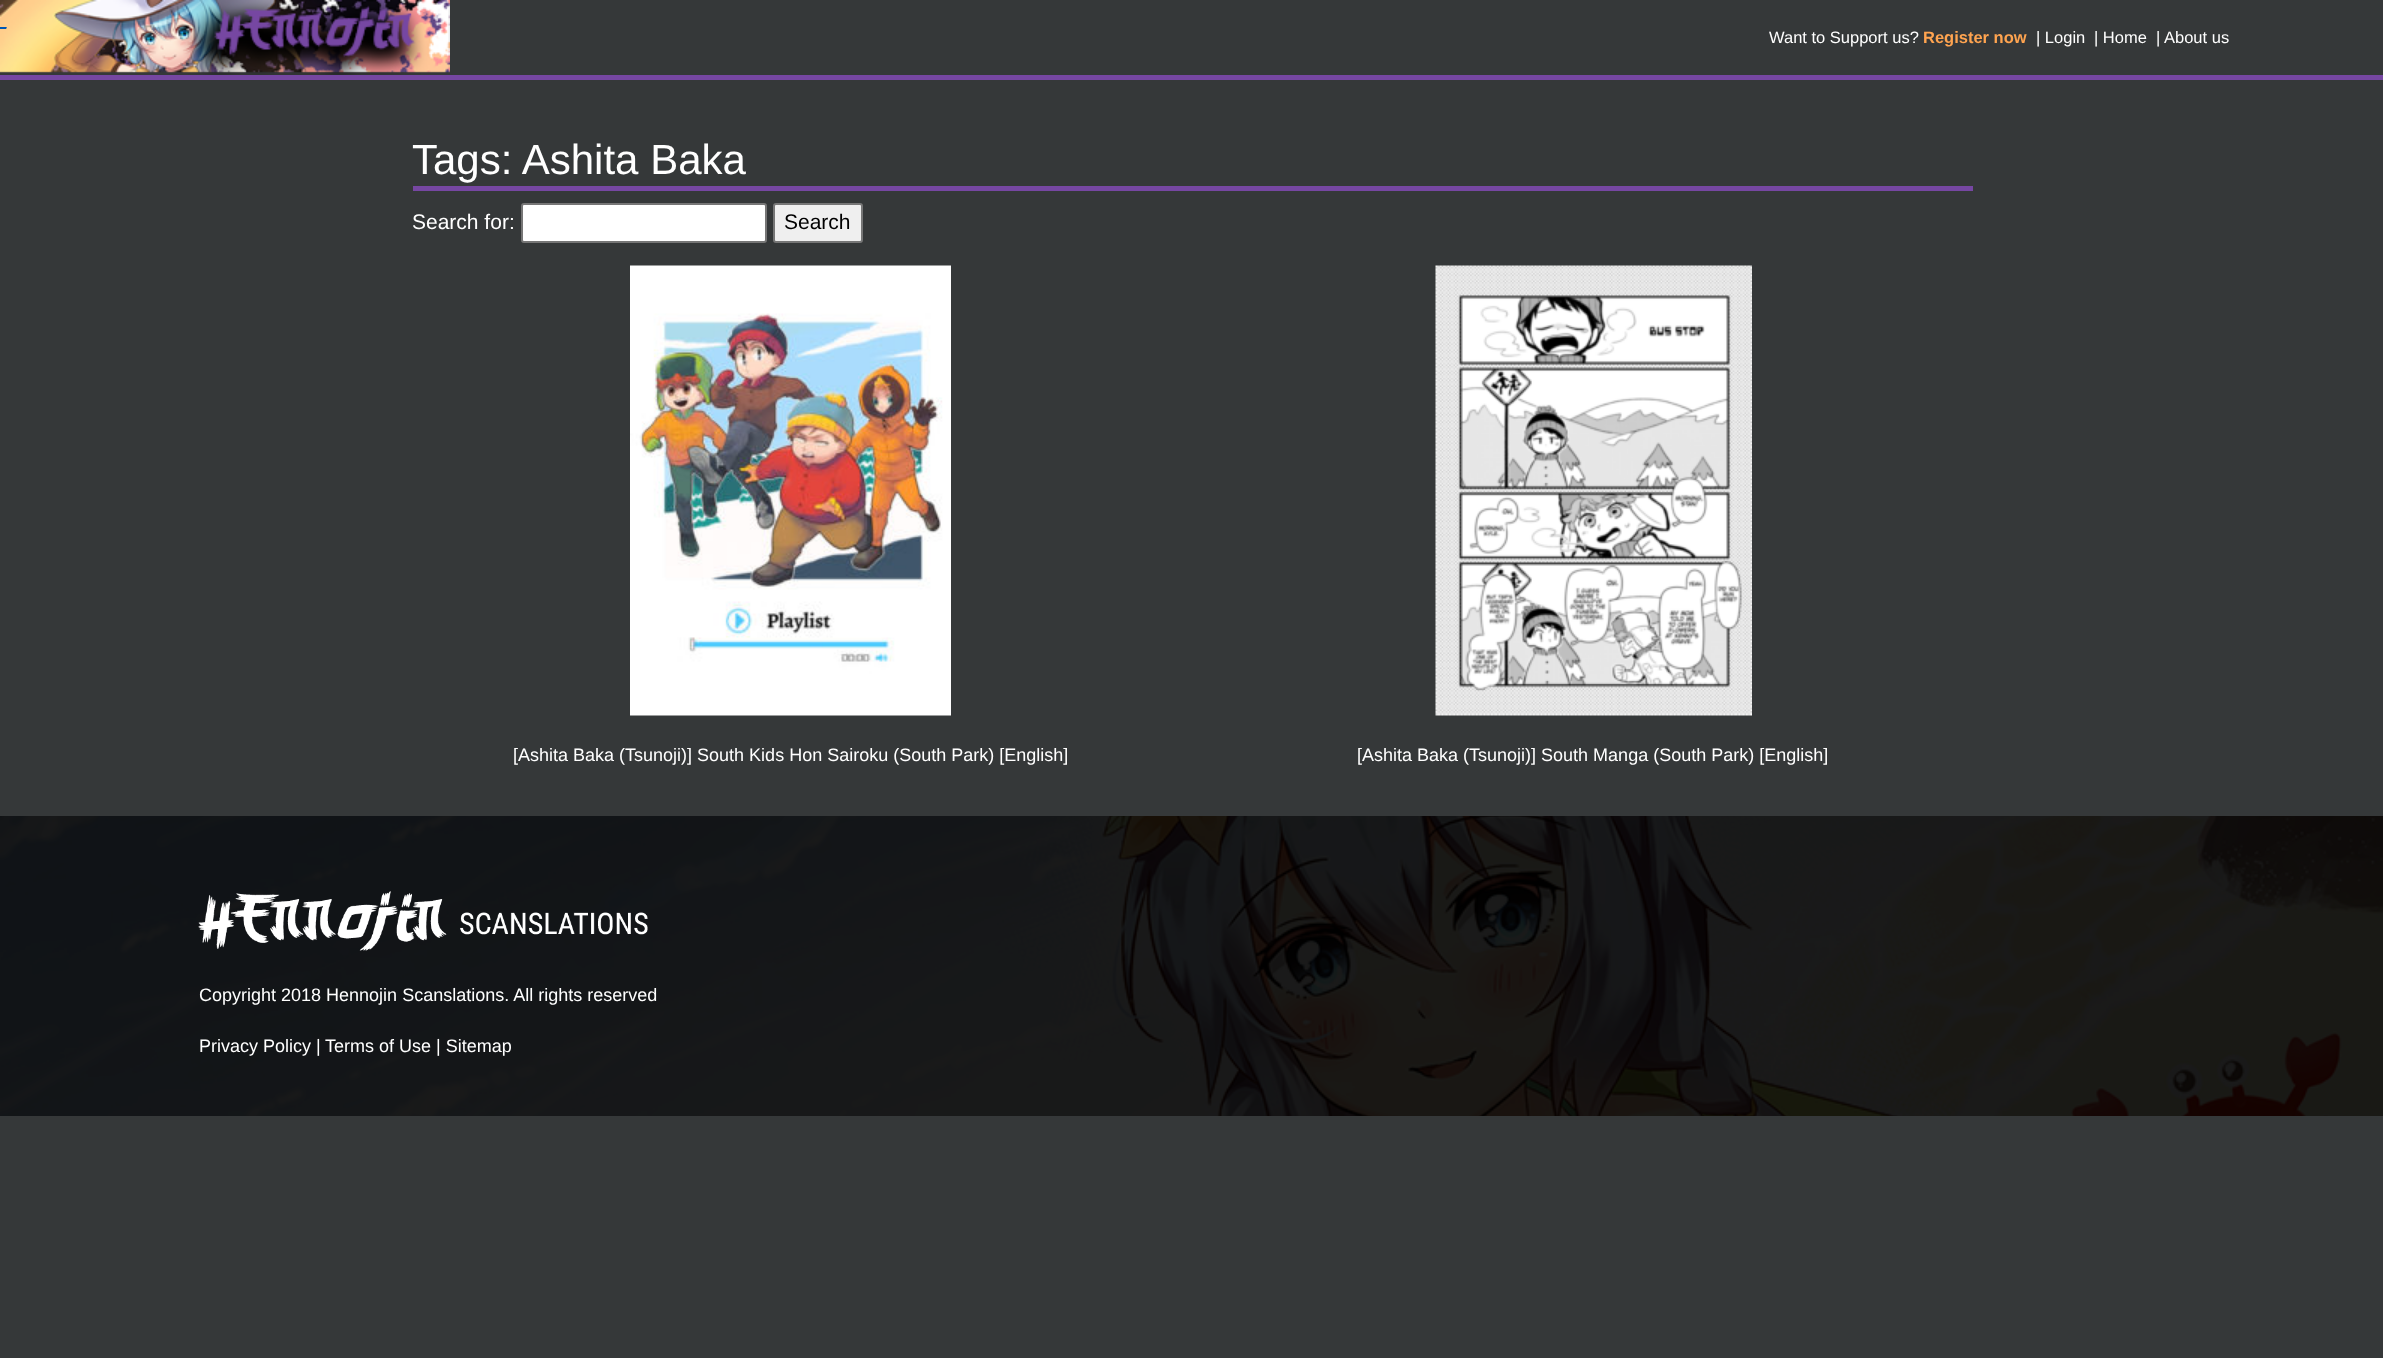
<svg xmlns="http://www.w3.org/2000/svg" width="2383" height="1358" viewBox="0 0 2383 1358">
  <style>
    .t1 { font: 16.5px Liberation Sans; fill: #fff; }
    .t2 { font: bold 16.5px Liberation Sans; fill: #ffa450; }
    .t3 { font: 42px Liberation Sans; fill: #fff; }
    .t4 { font: 21px Liberation Sans; fill: #fff; }
    .t5 { font: 21px Liberation Sans; fill: #000; }
    .t6 { font: 18px Liberation Sans; fill: #fff; }
  </style>
  <rect width="100%" height="100%" fill="#353839"/>
  <rect x="0" y="75" width="2383" height="5" fill="#7647a2"/>
  <image x="0" y="0" width="450" height="75" href="images/1.png"/>
  <rect x="0" y="28" width="6" height="1" fill="#0056b3"/>
  <text x="1769" y="43" class="t1">Want to Support us?</text>
  <text x="1923" y="43" class="t2">Register now</text>
  <text x="2036" y="43" class="t1">| Login</text>
  <text x="2094" y="43" class="t1">| Home</text>
  <text x="2156" y="43" class="t1">|</text>
  <text x="2164" y="43" class="t1">About us</text>
  <rect x="413" y="186" width="1560" height="5" fill="#7647a2"/>
  <text x="412" y="174" class="t3">Tags: Ashita Baka</text>
  <text x="412" y="229" class="t4">Search for:</text>
  <rect x="522" y="204" width="244" height="38" rx="2" fill="#fff" stroke="#767676" stroke-width="2"/>
  <rect x="774" y="204" width="88" height="38" rx="2" fill="#efefef" stroke="#767676" stroke-width="2"/>
  <text x="784" y="229" class="t5">Search</text>
  <image x="630" y="265" width="321" height="451" href="images/2.png"/>
  <text x="513" y="761" class="t6">[Ashita Baka (Tsunoji)] South Kids Hon Sairoku (South Park) [English]</text>
  <image x="1435" y="265" width="317" height="451" href="images/3.png"/>
  <text x="1357" y="761" class="t6">[Ashita Baka (Tsunoji)] South Manga (South Park) [English]</text>
  <image x="0" y="816" width="2383" height="300" href="images/4.png"/>
  <image x="198" y="891" width="450" height="60" href="images/5.png"/>
  <text x="199" y="1001" class="t6">Copyright 2018 Hennojin Scanslations. All rights reserved</text>
  <text x="199" y="1052" class="t6">Privacy Policy |</text>
  <text x="325" y="1052" class="t6">Terms of Use | Sitemap</text>
</svg>
